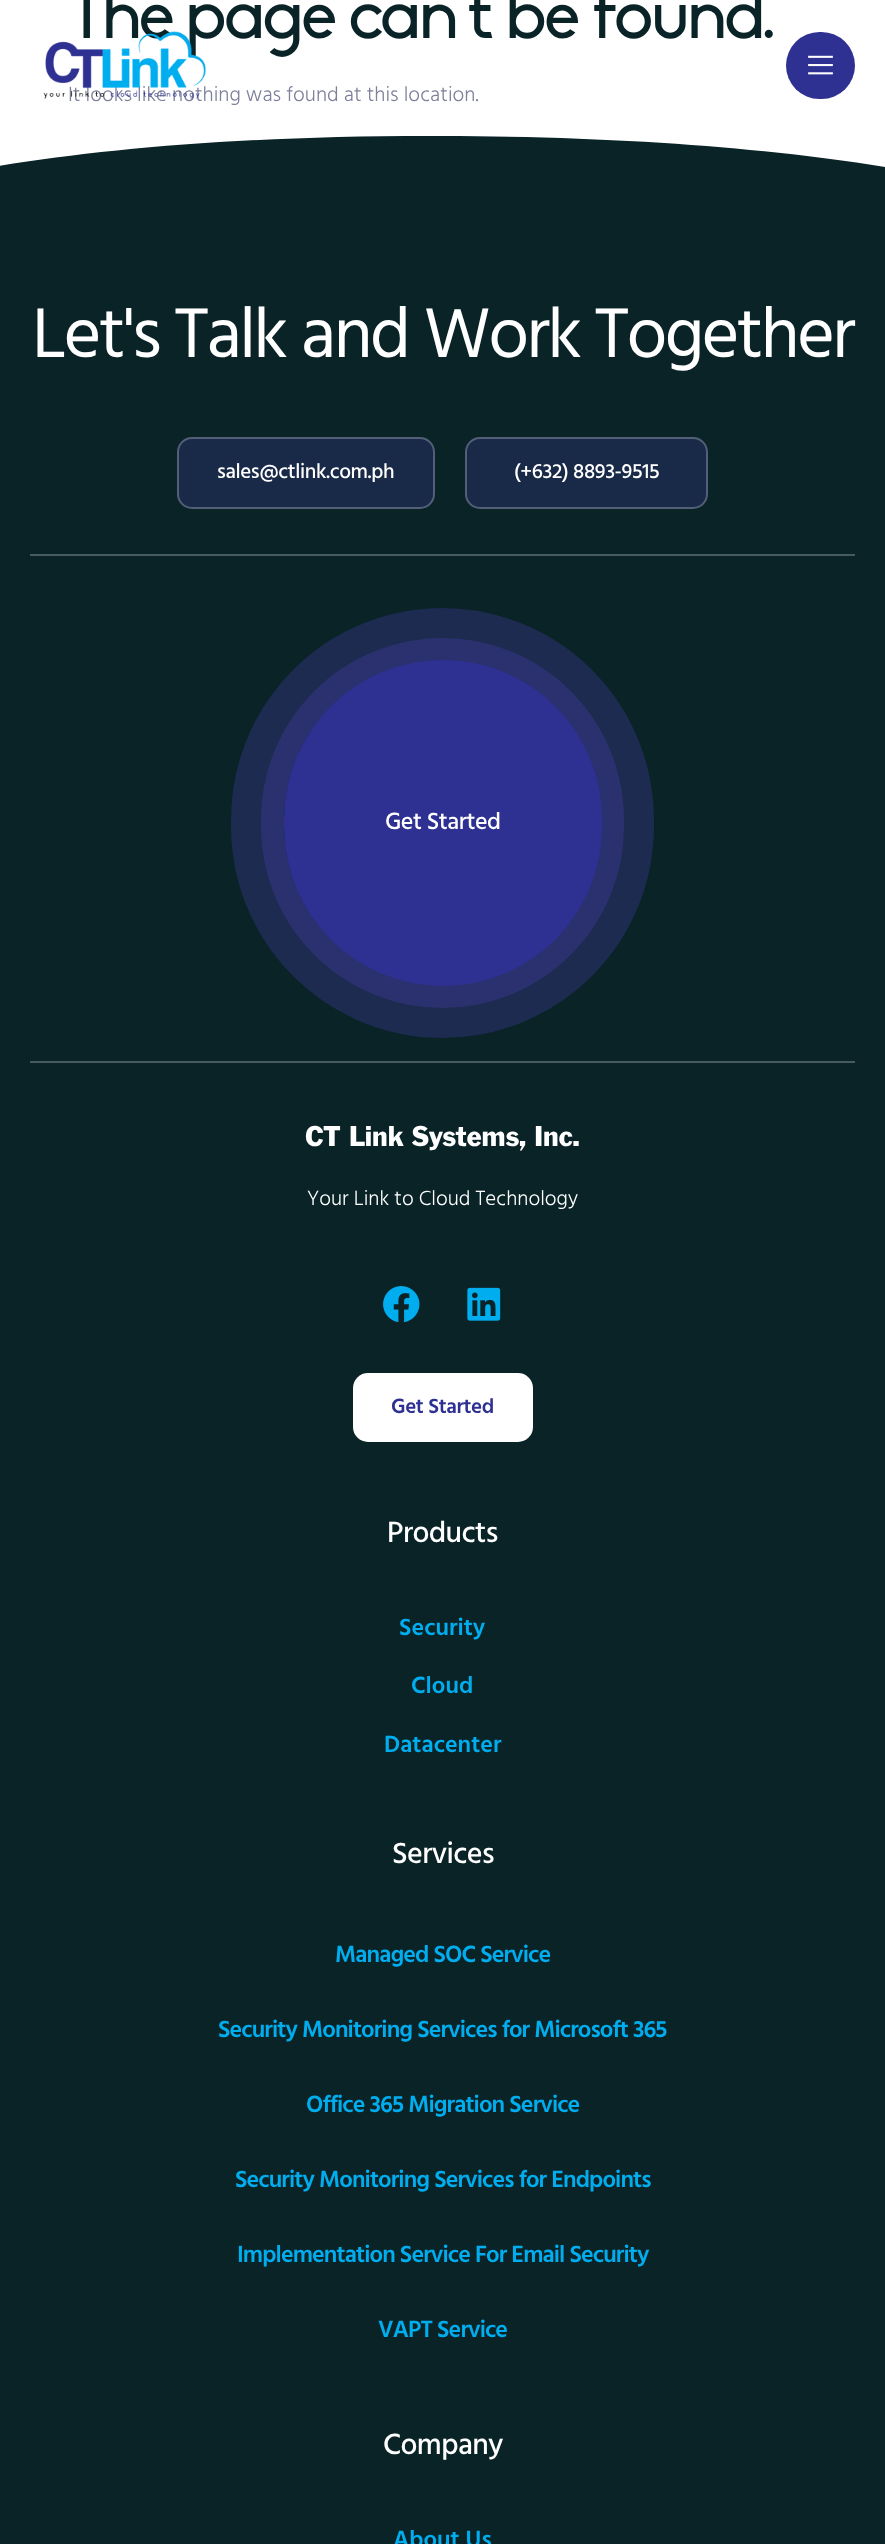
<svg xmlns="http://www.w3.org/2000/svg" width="885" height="2544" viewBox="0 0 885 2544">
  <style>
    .t1 { font: 72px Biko; letter-spacing: -2.5px; fill: #092327; }
    .t2 { font: 300 21px Hind Madurai; fill: #7e819b; }
    .t3 { font: 72px Hind Madurai; letter-spacing: -2.5px; fill: #fff; }
    .t4 { font: 500 21px Hind Madurai; letter-spacing: -0.4px; fill: #fff; }
    .t5 { font: 500 24px Hind Madurai; letter-spacing: -0.5px; fill: #fff; }
    .t6 { font: 30px Franklin Gothic; letter-spacing: -0.6px; fill: #fff; }
    .t7 { font: 300 21px Hind Madurai; fill: #fff; }
    .t8 { font: 600 21px Hind Madurai; letter-spacing: -0.4px; fill: #2e3192; }
    .t9 { font: 500 30px Hind Madurai; letter-spacing: -0.6px; fill: #fff; }
    .t10 { font: 600 24px Hind Madurai; fill: #00aeef; }
    .t11 { font: 600 24px Hind Madurai; letter-spacing: -0.9px; fill: #00aeef; }
  </style>
  <defs>
    <clipPath id="clip1"><rect x="0" y="132" width="885" height="150"/></clipPath>
  </defs>
  <rect width="100%" height="100%" fill="#fff"/>
  <text x="68" y="38" class="t1">The page can</text>
  <text x="468" y="38" class="t1">t be found.</text>
  <text x="68" y="101" class="t2">It looks like nothing was found at this location.</text>
  <image x="43" y="31" width="163" height="68" href="images/1.png"/>
  <rect x="786" y="32" width="69" height="67" rx="33.5" fill="#2e3192"/>
  <image x="808" y="55" width="25" height="20" href="images/2.png"/>
  <rect x="0" y="136" width="885" height="2408" fill="#092327"/>
  <g clip-path="url(#clip1)">
    <path d="M442 136C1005 137 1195 251 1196 281V131H-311V280C-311 252-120 134 442 136Z" fill="#fff"/>
  </g>
  <text x="32" y="357" class="t3">Let's Talk and Work Together</text>
  <rect x="177" y="437" width="258" height="72" rx="15" fill="#192a48"/>
  <rect x="178" y="438" width="256" height="70" rx="14" fill="none" stroke="#ffffff40" stroke-width="2"/>
  <text x="217" y="478" class="t4">sales@ctlink.com.ph</text>
  <rect x="465" y="437" width="243" height="72" rx="15" fill="#192a48"/>
  <rect x="466" y="438" width="241" height="70" rx="14" fill="none" stroke="#ffffff40" stroke-width="2"/>
  <text x="514" y="478" class="t4">(+632) 8893-9515</text>
  <rect x="30" y="554" width="825" height="2" fill="#475a5d"/>
  <rect x="257.5" y="634.5" width="370" height="377" rx="185" fill="none" stroke="#1c2b4f" stroke-width="53"/>
  <rect x="272.5" y="649.5" width="340" height="347" rx="170" fill="none" stroke="#6e4ff730" stroke-width="23"/>
  <rect x="284" y="660" width="318" height="326" rx="159" fill="#2e3192"/>
  <text x="385" y="829" class="t5">Get Started</text>
  <rect x="30" y="1061" width="825" height="2" fill="#475a5d"/>
  <text x="305" y="1146" class="t6">CT Link Systems, Inc.</text>
  <text x="307" y="1205" class="t7">Your Link to Cloud Technology</text>
  <image x="383" y="1286" width="37" height="37" href="images/3.png"/>
  <image x="467" y="1287" width="34" height="34" href="images/4.png"/>
  <rect x="353" y="1373" width="180" height="69" rx="15" fill="#fff"/>
  <text x="391" y="1413" class="t8">Get Started</text>
  <text x="387" y="1542" class="t9">Products</text>
  <text x="399" y="1635" class="t10">Security</text>
  <text x="411" y="1693" class="t10">Cloud</text>
  <text x="384" y="1752" class="t10">Datacenter</text>
  <text x="392" y="1863" class="t9">Services</text>
  <text x="335" y="1962" class="t11">Managed SOC Service</text>
  <text x="218" y="2037" class="t11">Security Monitoring Services for Microsoft 365</text>
  <text x="306" y="2112" class="t11">Office 365 Migration Service</text>
  <text x="235" y="2187" class="t11">Security Monitoring Services for Endpoints</text>
  <text x="237" y="2262" class="t11">Implementation Service For Email Security</text>
  <text x="378" y="2337" class="t11">VAPT Service</text>
  <text x="383" y="2454" class="t9">Company</text>
  <text x="393" y="2547" class="t10">About Us</text>
</svg>
